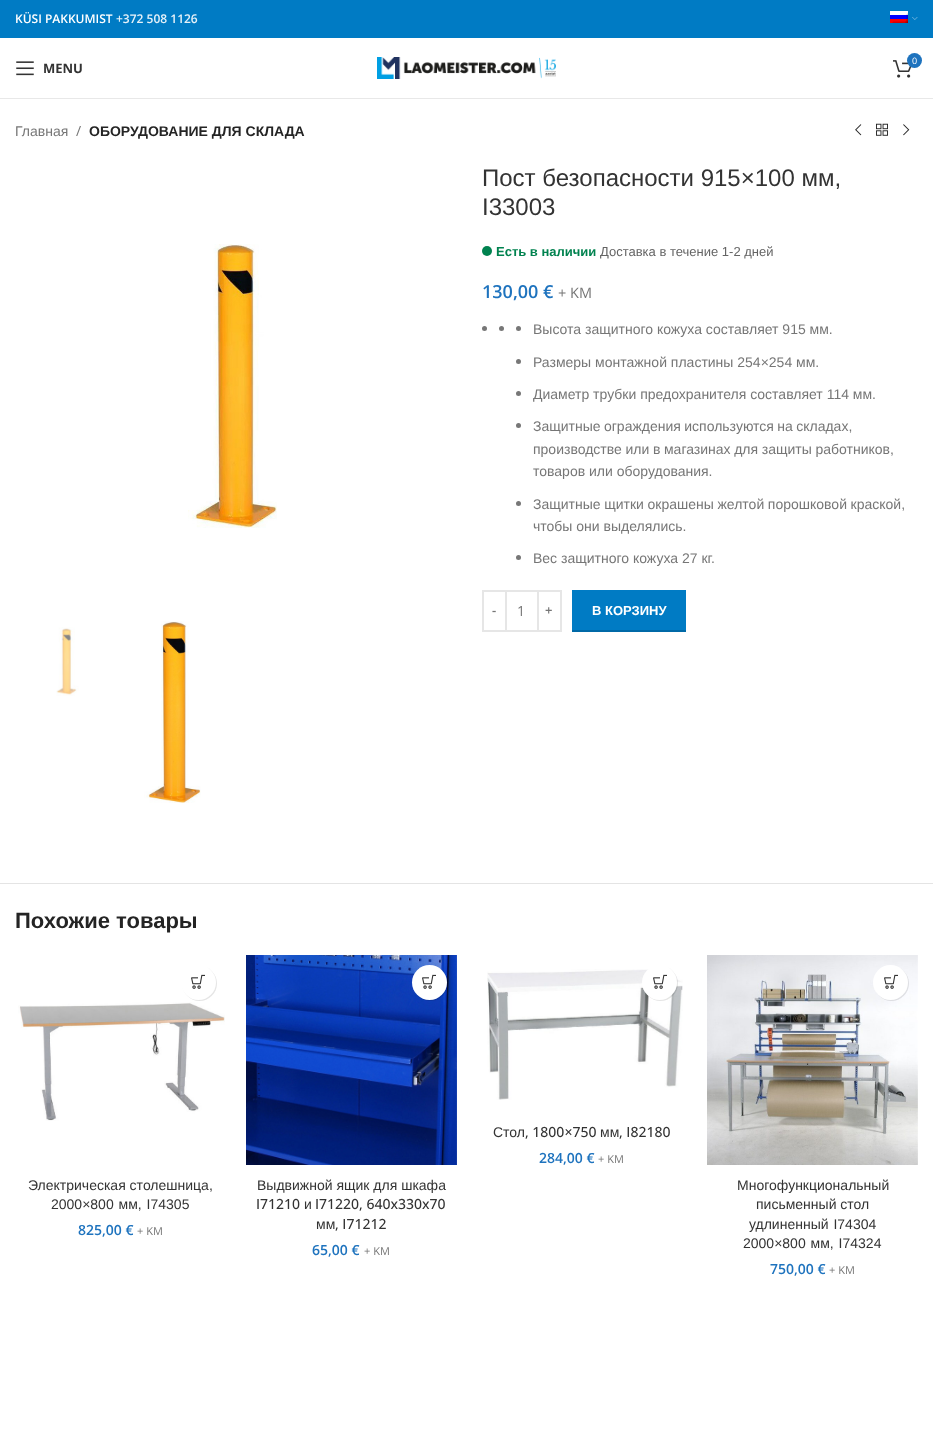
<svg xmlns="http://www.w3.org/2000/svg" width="933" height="1449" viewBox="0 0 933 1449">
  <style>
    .t1 { font: 600 12px Open Sans; fill: #fff; }
    .t2 { font: 600 12px Open Sans; fill: #e6f2f9; }
    .t3 { font: 9px Open Sans; fill: #fff; }
    .t4 { font: bold 13px Open Sans; fill: #333; }
    .t5 { font: 14px Liberation Sans; fill: #767676; }
    .t6 { font: 14px Open Sans; fill: #767676; }
    .t7 { font: bold 14px Liberation Sans; fill: #242424; }
    .t8 { font: 24px Liberation Sans; fill: #333; }
    .t9 { font: bold 13px Liberation Sans; fill: #00824f; }
    .t10 { font: 13px Liberation Sans; fill: #646464; }
    .t11 { font: 600 18px Open Sans; fill: #1e73be; }
    .t12 { font: 14.5px Open Sans; fill: #767676; }
    .t13 { font: 600 13px Open Sans; fill: #767676; }
    .t14 { font: bold 13px Liberation Sans; fill: #fff; }
    .t15 { font: bold 22px Liberation Sans; fill: #242424; }
    .t16 { font: 14px Liberation Sans; fill: #333; }
    .t17 { font: 500 14px Open Sans; fill: #333; }
    .t18 { font: 600 14px Open Sans; fill: #1e73be; }
    .t19 { font: 11px Open Sans; fill: #767676; }
  </style>
  <rect width="100%" height="100%" fill="#fff"/>
  <rect x="0" y="0" width="933" height="38" fill="#007bc4"/>
  <text x="15" y="23" class="t1">KÜSI PAKKUMIST</text>
  <text x="116" y="23" class="t2">+372 508 1126</text>
  <image x="890" y="11" width="18" height="12" href="images/1.png"/>
  <image x="912" y="17" width="6" height="3" href="images/2.png"/>
  <rect x="0" y="98" width="933" height="1" fill="#e8e8e8"/>
  <image x="377" y="57" width="179" height="22" href="images/3.png"/>
  <image x="893" y="60" width="19" height="18" href="images/4.png"/>
  <circle cx="914.5" cy="60.5" r="7.5" fill="#1e73be"/>
  <text x="912" y="64" class="t3">0</text>
  <image x="16" y="61" width="18" height="15" href="images/5.png"/>
  <text x="43" y="73" class="t4">MENU</text>
  <text x="15" y="136" class="t5">Главная</text>
  <text x="76" y="136" class="t6">/</text>
  <text x="89" y="136" class="t7">ОБОРУДОВАНИЕ ДЛЯ СКЛАДА</text>
  <image x="855" y="124" width="7" height="12" href="images/6.png"/>
  <image x="876" y="123" width="12" height="13" href="images/7.png"/>
  <image x="903" y="124" width="7" height="12" href="images/8.png"/>
  <image x="188" y="244" width="89" height="284" href="images/9.png"/>
  <image x="56" y="627" width="23" height="69" href="images/10.png"/>
  <image x="144" y="621" width="57" height="182" href="images/11.png"/>
  <text x="482" y="186" class="t8">Пост безопасности 915×100 мм,</text>
  <text x="482" y="215" class="t8">I33003</text>
  <circle cx="487" cy="251" r="5" fill="#00824f"/>
  <text x="496" y="256" class="t9">Есть в наличии</text>
  <text x="600" y="256" class="t10">Доставка в течение 1-2 дней</text>
  <text x="482" y="298" class="t11">130,00 €</text>
  <text x="558" y="298" class="t12">+ KM</text>
  <circle cx="484.5" cy="328.5" r="2.5" fill="#777"/>
  <circle cx="501.5" cy="328.5" r="2.5" fill="#777"/>
  <circle cx="518.5" cy="328.5" r="2.5" fill="#777"/>
  <text x="533" y="334" class="t5">Высота защитного кожуха составляет 915 мм.</text>
  <circle cx="518.5" cy="361.5" r="2.5" fill="#777"/>
  <text x="533" y="367" class="t5">Размеры монтажной пластины 254×254 мм.</text>
  <circle cx="518.5" cy="393.5" r="2.5" fill="#777"/>
  <text x="533" y="399" class="t5">Диаметр трубки предохранителя составляет 114 мм.</text>
  <circle cx="518.5" cy="425.5" r="2.5" fill="#777"/>
  <text x="533" y="431" word-spacing="-0.5" class="t5">Защитные ограждения используются на складах,</text>
  <text x="533" y="454" word-spacing="-0.25" class="t5">производстве или в магазинах для защиты работников,</text>
  <text x="533" y="476" class="t5">товаров или оборудования.</text>
  <circle cx="518.5" cy="503.5" r="2.5" fill="#777"/>
  <text x="533" y="509" word-spacing="-0.25" class="t5">Защитные щитки окрашены желтой порошковой краской,</text>
  <text x="533" y="531" class="t5">чтобы они выделялись.</text>
  <circle cx="518.5" cy="557.5" r="2.5" fill="#777"/>
  <text x="533" y="563" class="t5">Вес защитного кожуха 27 кг.</text>
  <rect x="483" y="591" width="23" height="40" fill="none" stroke="#e6e6e6" stroke-width="2"/>
  <text x="492" y="615" class="t13">-</text>
  <rect x="507" y="590" width="30" height="2" fill="#e6e6e6"/>
  <rect x="507" y="630" width="30" height="2" fill="#e6e6e6"/>
  <text x="517" y="616" class="t6">1</text>
  <rect x="538" y="591" width="23" height="40" fill="none" stroke="#e6e6e6" stroke-width="2"/>
  <text x="545" y="615" class="t13">+</text>
  <rect x="572" y="590" width="114" height="40" fill="#007bc4"/>
  <rect x="572" y="630" width="114" height="2" fill="#0069a7"/>
  <text x="592" y="615" class="t14">В КОРЗИНУ</text>
  <rect x="0" y="883" width="933" height="1" fill="#e4e4e4"/>
  <text x="15" y="928" class="t15">Похожие товары</text>
  <image x="487" y="969" width="196" height="131" href="images/12.png"/>
  <rect x="643" y="966" width="35" height="35" rx="17.5" fill="#0000001a" filter="blur(0.5px)"/>
  <circle cx="659.5" cy="982.5" r="17.5" fill="#fff"/>
  <image x="653" y="974" width="14" height="15" href="images/13.png"/>
  <text x="493" y="1137" class="t16">Стол</text>
  <text x="525" y="1137" class="t17">, 1800×750</text>
  <text x="600" y="1137" class="t16">мм</text>
  <text x="619" y="1137" class="t17">, I82180</text>
  <text x="539" y="1163" class="t18">284,00 €</text>
  <text x="598" y="1163" class="t19">+ KM</text>
  <image x="18" y="1002" width="207" height="119" href="images/14.png"/>
  <rect x="182" y="966" width="35" height="35" rx="17.5" fill="#0000001a" filter="blur(0.5px)"/>
  <circle cx="198.5" cy="982.5" r="17.5" fill="#fff"/>
  <image x="191" y="974" width="14" height="15" href="images/13.png"/>
  <text x="28" y="1190" class="t16">Электрическая столешница,</text>
  <text x="51" y="1209" word-spacing="1" class="t16">2000×800 мм, I74305</text>
  <text x="78" y="1235" class="t18">825,00 €</text>
  <text x="137" y="1235" class="t19">+ KM</text>
  <image x="246" y="955" width="211" height="210" href="images/15.png"/>
  <rect x="413" y="966" width="35" height="35" rx="17.5" fill="#0000001a" filter="blur(0.5px)"/>
  <circle cx="429.5" cy="982.5" r="17.5" fill="#fff"/>
  <image x="422" y="974" width="14" height="15" href="images/13.png"/>
  <text x="257" y="1190" class="t16">Выдвижной ящик для шкафа</text>
  <text x="256" y="1209" class="t17">I71210</text>
  <text x="304" y="1209" class="t16">и</text>
  <text x="315" y="1209" class="t17">I71220, 640x330x70</text>
  <text x="316" y="1229" class="t16">мм</text>
  <text x="335" y="1229" class="t17">, I71212</text>
  <text x="312" y="1255" class="t18">65,00 €</text>
  <text x="364" y="1255" class="t19">+ KM</text>
  <image x="707" y="955" width="211" height="210" href="images/16.png"/>
  <rect x="874" y="966" width="35" height="35" rx="17.5" fill="#0000001a" filter="blur(0.5px)"/>
  <circle cx="890.5" cy="982.5" r="17.5" fill="#fff"/>
  <image x="884" y="974" width="14" height="15" href="images/13.png"/>
  <text x="737" y="1190" class="t16">Многофункциональный</text>
  <text x="756" y="1209" class="t16">письменный стол</text>
  <text x="749" y="1229" word-spacing="1" class="t16">удлиненный I74304</text>
  <text x="743" y="1248" word-spacing="1" class="t16">2000×800 мм, I74324</text>
  <text x="770" y="1274" class="t18">750,00 €</text>
  <text x="829" y="1274" class="t19">+ KM</text>
</svg>
